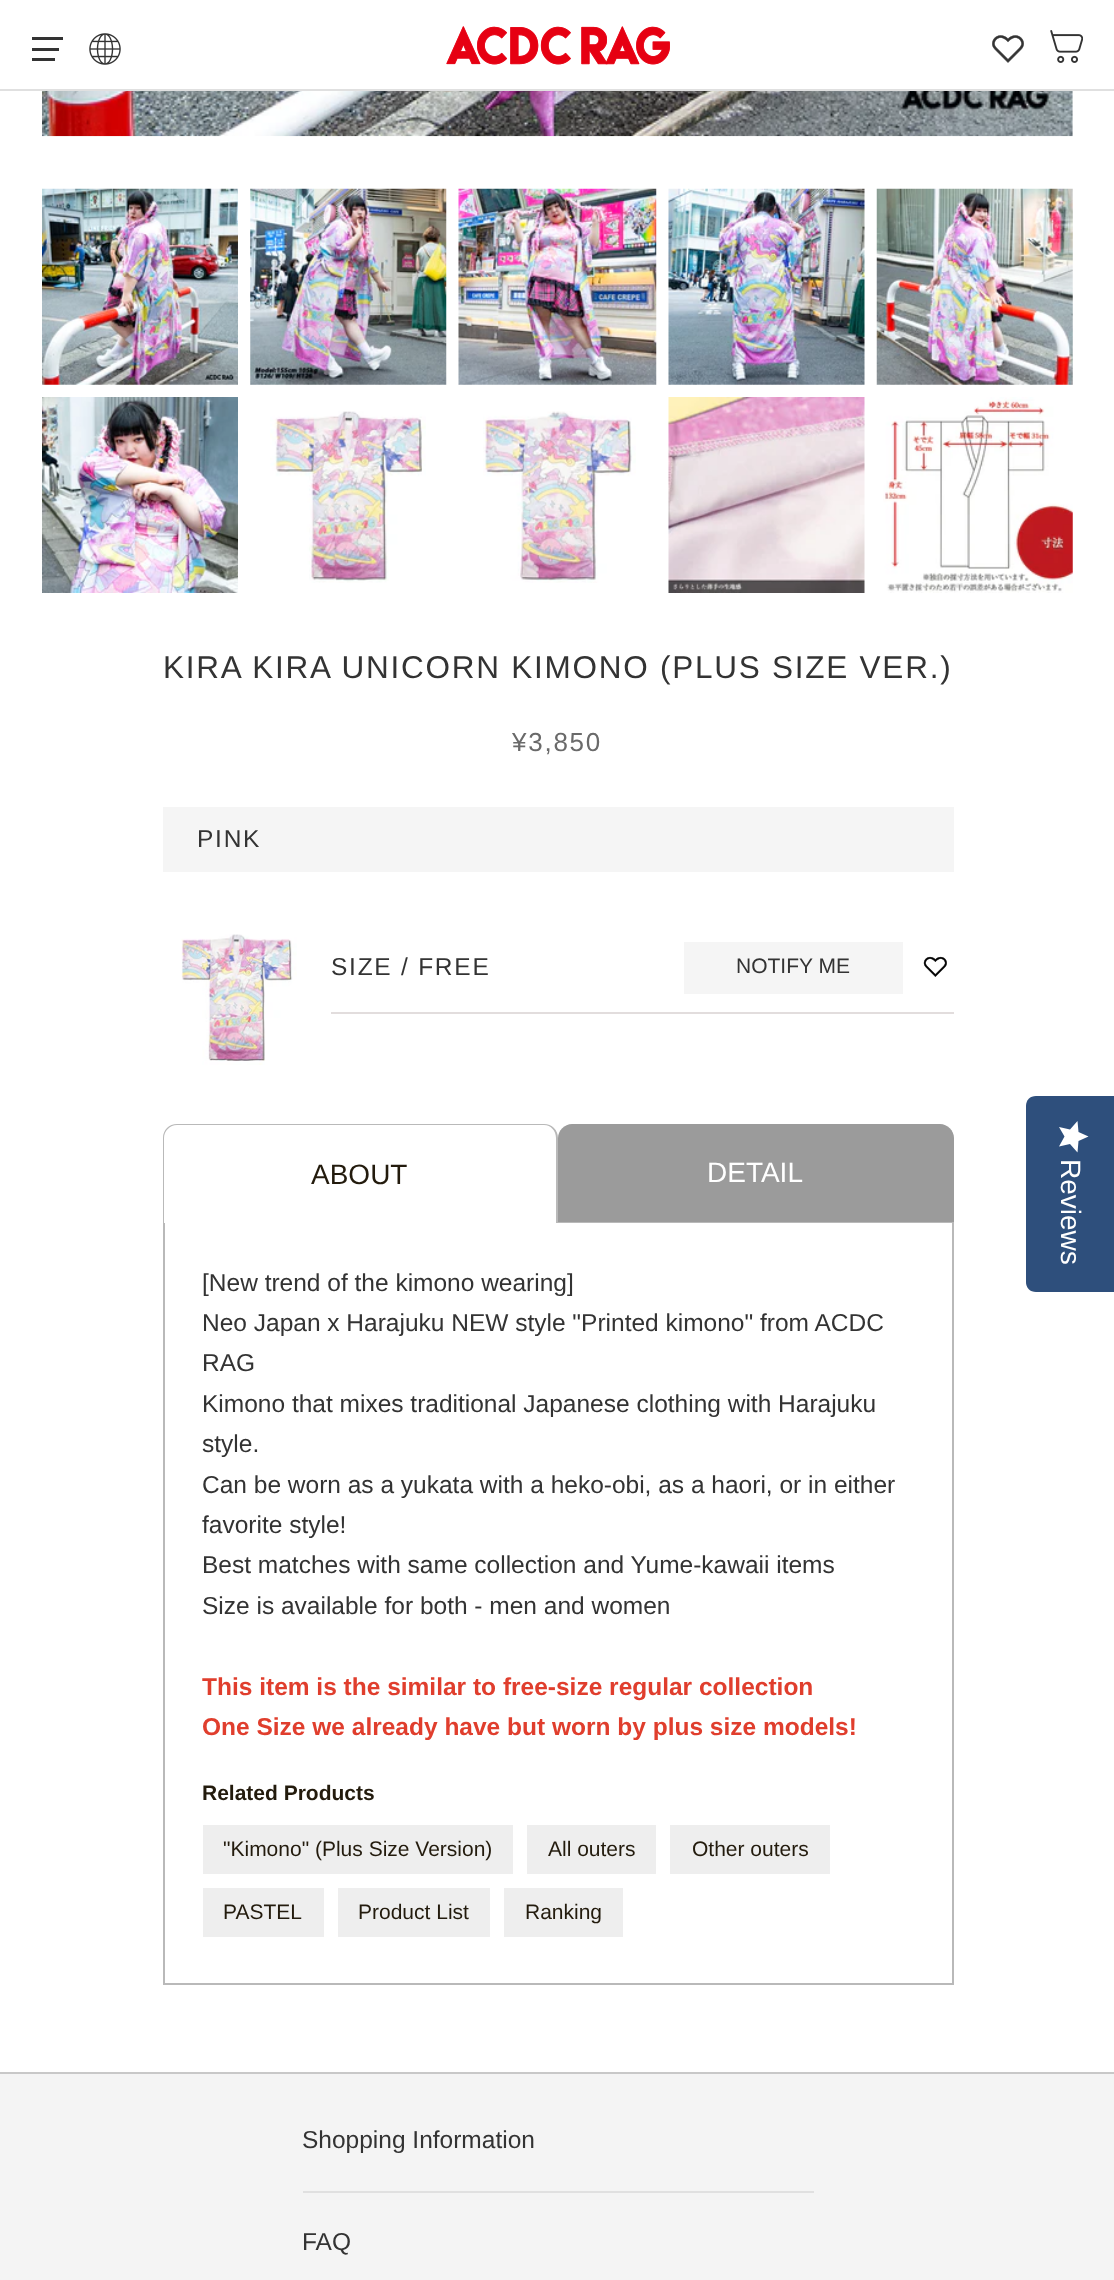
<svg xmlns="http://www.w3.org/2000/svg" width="1114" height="2280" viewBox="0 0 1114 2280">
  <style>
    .t1 { font: 31.5px Liberation Sans; letter-spacing: 1.75px; fill: #333; }
    .t2 { font: 26px Liberation Sans; letter-spacing: 1.75px; fill: #6a6a6a; }
    .t3 { font: 24.5px Liberation Sans; letter-spacing: 1.75px; fill: #333; }
    .t4 { font: 21px Liberation Sans; fill: #333; }
    .t5 { font: 28px Liberation Sans; fill: #231b0d; }
    .t6 { font: 28px Liberation Sans; fill: #fff; }
    .t7 { font: 24.5px Liberation Sans; fill: #333; }
    .t8 { font: bold 24.5px Liberation Sans; fill: #e03e2d; }
    .t9 { font: bold 21px Liberation Sans; fill: #231b0d; }
    .t10 { font: 21px Liberation Sans; fill: #231b0d; }
  </style>
  <defs>
    <linearGradient id="g1" gradientUnits="userSpaceOnUse" x1="1089" y1="1121" x2="1089" y2="1152"><stop offset="1" stop-color="#fff"/><stop offset="1" stop-color="#eaeaea"/></linearGradient>
  </defs>
  <rect width="100%" height="100%" fill="#fff"/>
  <rect x="0" y="89" width="1114" height="2" fill="#e0e0e0"/>
  <rect x="32" y="37" width="31" height="3" fill="#333"/>
  <rect x="32" y="48" width="27" height="3" fill="#333"/>
  <rect x="32" y="58" width="23" height="3" fill="#333"/>
  <image x="89" y="33" width="32" height="32" href="images/1.png"/>
  <image x="446" y="26" width="224" height="39" href="images/2.png"/>
  <image x="992" y="35" width="32" height="28" href="images/3.png"/>
  <image x="1050" y="30" width="33" height="33" href="images/4.png"/>
  <image x="42" y="91" width="1031" height="46" href="images/5.png"/>
  <image x="42" y="188" width="196" height="197" href="images/6.png"/>
  <image x="250" y="188" width="197" height="197" href="images/7.png"/>
  <image x="458" y="188" width="199" height="197" href="images/8.png"/>
  <image x="668" y="188" width="197" height="197" href="images/9.png"/>
  <image x="876" y="188" width="197" height="197" href="images/10.png"/>
  <image x="42" y="397" width="196" height="196" href="images/11.png"/>
  <image x="270" y="411" width="156" height="172" href="images/12.png"/>
  <image x="483" y="411" width="153" height="172" href="images/13.png"/>
  <image x="668" y="397" width="197" height="196" href="images/14.png"/>
  <image x="883" y="397" width="190" height="196" href="images/15.png"/>
  <text x="163" y="678" class="t1">KIRA KIRA UNICORN KIMONO (PLUS SIZE VER.)</text>
  <text x="512" y="751" class="t2">¥3,850</text>
  <rect x="163" y="807" width="791" height="65" fill="#f5f5f5"/>
  <text x="197" y="847" class="t3">PINK</text>
  <image x="181" y="934" width="116" height="131" href="images/16.png"/>
  <rect x="331" y="1012" width="623" height="2" fill="#e2dddd"/>
  <text x="331" y="975" class="t3">SIZE / FREE</text>
  <rect x="684" y="942" width="219" height="52" fill="#f5f5f5"/>
  <text x="736" y="973" class="t4">NOTIFY ME</text>
  <image x="923" y="956" width="24" height="21" href="images/17.png"/>
  <path d="M177 1124H544C552 1124 558 1130 558 1138V1223H163V1138C163 1130 169 1124 177 1124ZM177 1125H544C551 1125 556 1131 556 1138V1223H164V1138C164 1131 170 1125 177 1125Z" fill="#b9b9b9" fill-rule="evenodd"/>
  <text x="311" y="1184" class="t5">ABOUT</text>
  <path d="M572 1124H940C947.5 1124 954 1130.5 954 1138V1223H558V1138C558 1130.5 564.5 1124 572 1124Z" fill="#9b9b9b"/>
  <rect x="558" y="1222" width="396" height="1" fill="#b9b9b9"/>
  <text x="707" y="1182" class="t6">DETAIL</text>
  <rect x="952" y="1223" width="2" height="762" fill="#b9b9b9"/>
  <rect x="163" y="1983" width="791" height="2" fill="#b9b9b9"/>
  <rect x="163" y="1223" width="2" height="762" fill="#b9b9b9"/>
  <text x="202" y="1291" class="t7">[New trend of the kimono wearing]</text>
  <text x="202" y="1331" class="t7">Neo Japan x Harajuku NEW style "Printed kimono" from ACDC</text>
  <text x="202" y="1371" class="t7">RAG</text>
  <text x="202" y="1412" class="t7">Kimono that mixes traditional Japanese clothing with Harajuku</text>
  <text x="202" y="1452" class="t7">style.</text>
  <text x="202" y="1493" class="t7">Can be worn as a yukata with a heko-obi, as a haori, or in either</text>
  <text x="202" y="1533" class="t7">favorite style!</text>
  <text x="202" y="1573" class="t7">Best matches with same collection and Yume-kawaii items</text>
  <text x="202" y="1614" class="t7">Size is available for both - men and women</text>
  <text x="202" y="1695" class="t8">This item is the similar to free-size regular collection</text>
  <text x="202" y="1735" class="t8">One Size we already have but worn by plus size models!</text>
  <text x="202" y="1800" class="t9">Related Products</text>
  <rect x="203" y="1825" width="310" height="49" fill="#eee"/>
  <text x="223" y="1856" class="t10">"Kimono" (Plus Size Version)</text>
  <rect x="527" y="1825" width="129" height="49" fill="#eee"/>
  <text x="548" y="1856" class="t10">All outers</text>
  <rect x="670" y="1825" width="160" height="49" fill="#eee"/>
  <text x="692" y="1856" class="t10">Other outers</text>
  <rect x="203" y="1888" width="121" height="49" fill="#eee"/>
  <text x="223" y="1919" class="t10">PASTEL</text>
  <rect x="338" y="1888" width="152" height="49" fill="#eee"/>
  <text x="358" y="1919" class="t10">Product List</text>
  <rect x="504" y="1888" width="119" height="49" fill="#eee"/>
  <text x="525" y="1919" class="t10">Ranking</text>
  <rect x="0" y="2074" width="1114" height="206" fill="#f4f4f4"/>
  <rect x="0" y="2072" width="1114" height="2" fill="#c8c8c8"/>
  <rect x="303" y="2191" width="511" height="2" fill="#e0e0e0"/>
  <text x="302" y="2148" class="t7">Shopping Information</text>
  <text x="302" y="2250" class="t7">FAQ</text>
  <path d="M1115 1096V1292H1036C1030 1292 1026 1288 1026 1282V1106C1026 1100 1030 1096 1036 1096Z" fill="#2e4f7c"/>
  <path d="M1064.5 1136.5L1059 1146.5L1070 1144L1077.5 1152.5L1078.5 1141L1088.5 1136.5L1078.5 1132L1077.5 1121L1070 1129.5L1059 1127Z" fill="url(#g1)"/>
  <text x="1061" y="1159" transform="rotate(90 1061 1159)" class="t6">Reviews</text>
</svg>
